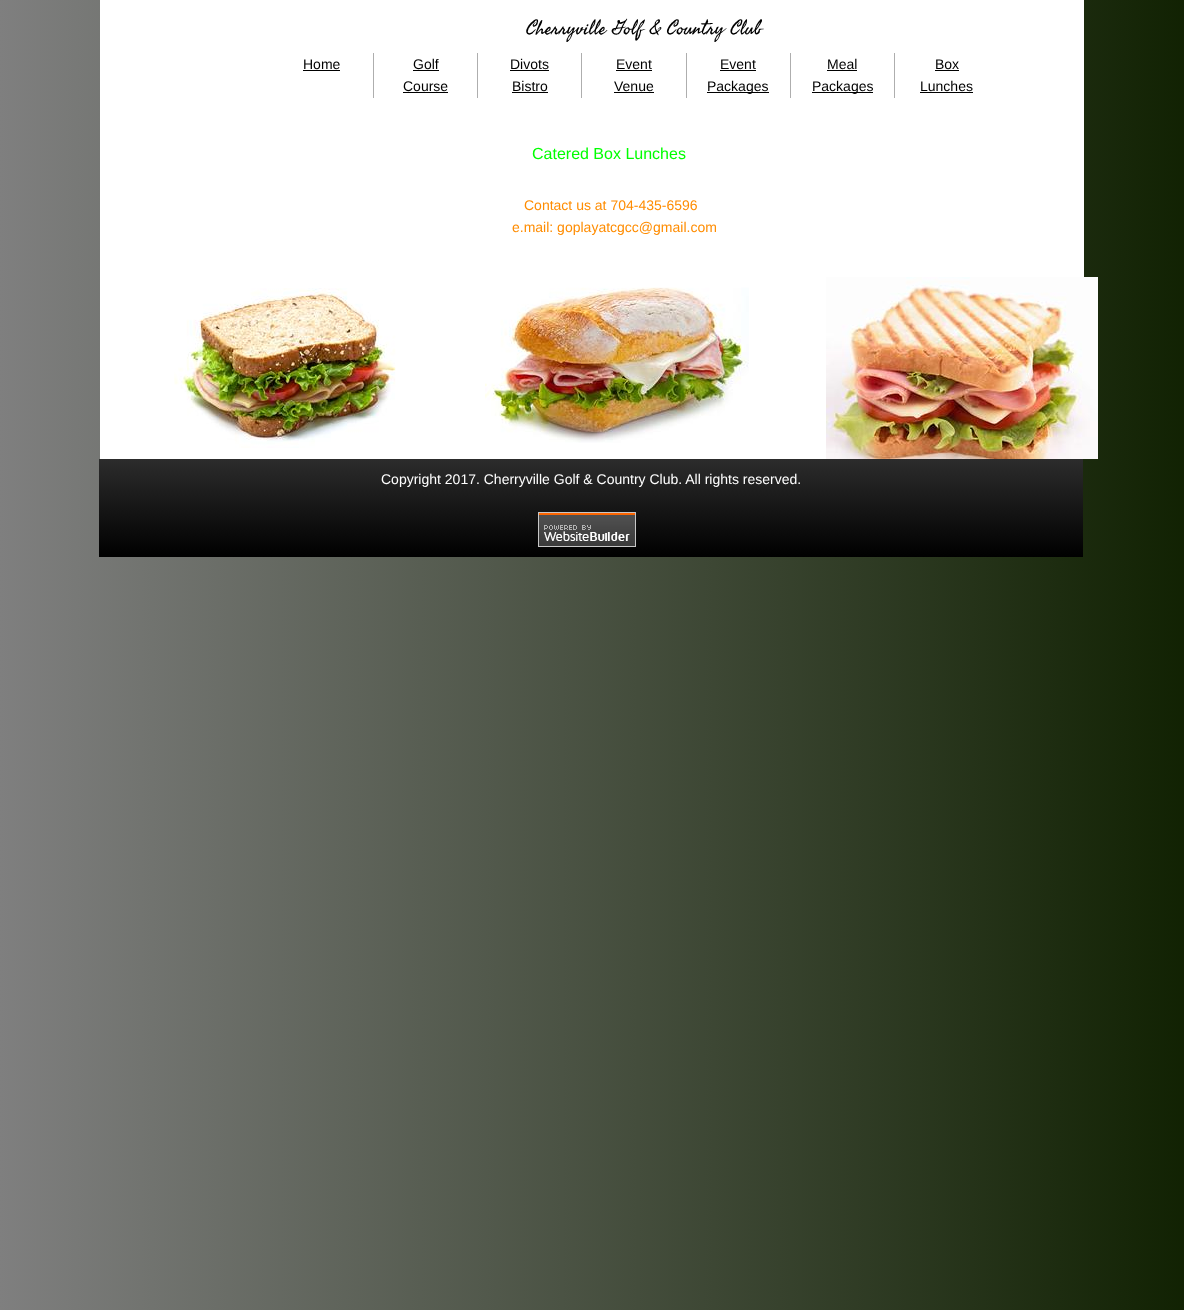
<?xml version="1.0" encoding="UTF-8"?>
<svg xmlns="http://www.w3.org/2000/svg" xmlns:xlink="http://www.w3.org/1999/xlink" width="1184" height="1310">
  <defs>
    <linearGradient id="g1" gradientUnits="userSpaceOnUse" x1="0" y1="655" x2="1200" y2="655"><stop offset="0" stop-color="#7f7f7f" /><stop offset="1" stop-color="#102101" /></linearGradient>
    <linearGradient id="g2" gradientUnits="userSpaceOnUse" x1="591" y1="459" x2="591" y2="557"><stop offset="0" stop-color="#4c4c4c" /><stop offset="0" stop-color="#474747" /><stop offset="0" stop-color="#2c2c2c" /><stop offset="1" stop-color="#000000" /></linearGradient>
  </defs>
  <rect width="100%" height="100%" fill="#ffffff" />
  <rect width="1184" height="1310" fill="url(#g1)" />
  <rect x="100" width="984" height="459" fill="#ffffff" />
  <rect x="373" y="53" width="1" height="45" fill="#aeaeae" />
  <rect x="303" y="70" width="37" height="1" fill="#000000" />
  <rect x="477" y="53" width="1" height="45" fill="#aeaeae" />
  <rect x="413" y="70" width="26" height="1" fill="#000000" />
  <rect x="403" y="92" width="45" height="1" fill="#000000" />
  <rect x="581" y="53" width="1" height="45" fill="#aeaeae" />
  <rect x="510" y="70" width="39" height="1" fill="#000000" />
  <rect x="512" y="92" width="36" height="1" fill="#000000" />
  <rect x="686" y="53" width="1" height="45" fill="#aeaeae" />
  <rect x="616" y="70" width="36" height="1" fill="#000000" />
  <rect x="614" y="92" width="40" height="1" fill="#000000" />
  <rect x="790" y="53" width="1" height="45" fill="#aeaeae" />
  <rect x="720" y="70" width="36" height="1" fill="#000000" />
  <rect x="707" y="92" width="62" height="1" fill="#000000" />
  <rect x="894" y="53" width="1" height="45" fill="#aeaeae" />
  <rect x="827" y="70" width="30" height="1" fill="#000000" />
  <rect x="812" y="92" width="61" height="1" fill="#000000" />
  <rect x="935" y="70" width="24" height="1" fill="#000000" />
  <rect x="920" y="92" width="53" height="1" fill="#000000" />
  <image x="174" y="288" width="222" height="160" xlink:href="image1.png" />
  <image x="485" y="287" width="264" height="156" xlink:href="image2.png" />
  <image x="826" y="277" width="272" height="182" xlink:href="image3.png" />
  <rect x="99" y="459" width="984" height="98" fill="url(#g2)" />
  <image x="538" y="512" width="98" height="35" xlink:href="image4.png" />
  <text x="526" y="34" style="font-family: Seaweed Script; font-size: 20px; fill: #000000">Cherryville Golf &amp; Country Club</text>
  <text x="303" y="69" style="font-family: Liberation Sans; font-size: 14px; fill: #000000">Home</text>
  <text x="413" y="69" style="font-family: Liberation Sans; font-size: 14px; fill: #000000">Golf</text>
  <text x="403" y="91" style="font-family: Liberation Sans; font-size: 14px; fill: #000000">Course</text>
  <text x="510" y="69" style="font-family: Liberation Sans; font-size: 14px; fill: #000000">Divots</text>
  <text x="512" y="91" style="font-family: Liberation Sans; font-size: 14px; fill: #000000">Bistro</text>
  <text x="616" y="69" style="font-family: Liberation Sans; font-size: 14px; fill: #000000">Event</text>
  <text x="614" y="91" style="font-family: Liberation Sans; font-size: 14px; fill: #000000">Venue</text>
  <text x="720" y="69" style="font-family: Liberation Sans; font-size: 14px; fill: #000000">Event</text>
  <text x="707" y="91" style="font-family: Liberation Sans; font-size: 14px; fill: #000000">Packages</text>
  <text x="827" y="69" style="font-family: Liberation Sans; font-size: 14px; fill: #000000">Meal</text>
  <text x="812" y="91" style="font-family: Liberation Sans; font-size: 14px; fill: #000000">Packages</text>
  <text x="935" y="69" style="font-family: Liberation Sans; font-size: 14px; fill: #000000">Box</text>
  <text x="920" y="91" style="font-family: Liberation Sans; font-size: 14px; fill: #000000">Lunches</text>
  <text x="532" y="159" style="font-family: Liberation Sans; font-size: 16px; fill: #00ff00">Catered Box Lunches</text>
  <text x="524" y="210" style="font-family: Liberation Sans; font-size: 14px; fill: #ff8c00">Contact us at 704-435-6596</text>
  <text x="512" y="232" style="font-family: Liberation Sans; font-size: 14px; fill: #ff8c00">e.mail: goplayatcgcc@gmail.com</text>
  <text x="381" y="484" style="font-family: Liberation Sans; font-size: 14px; fill: #ffffff">Copyright 2017. Cherryville Golf &amp; Country Club. All rights reserved.</text>
</svg>
